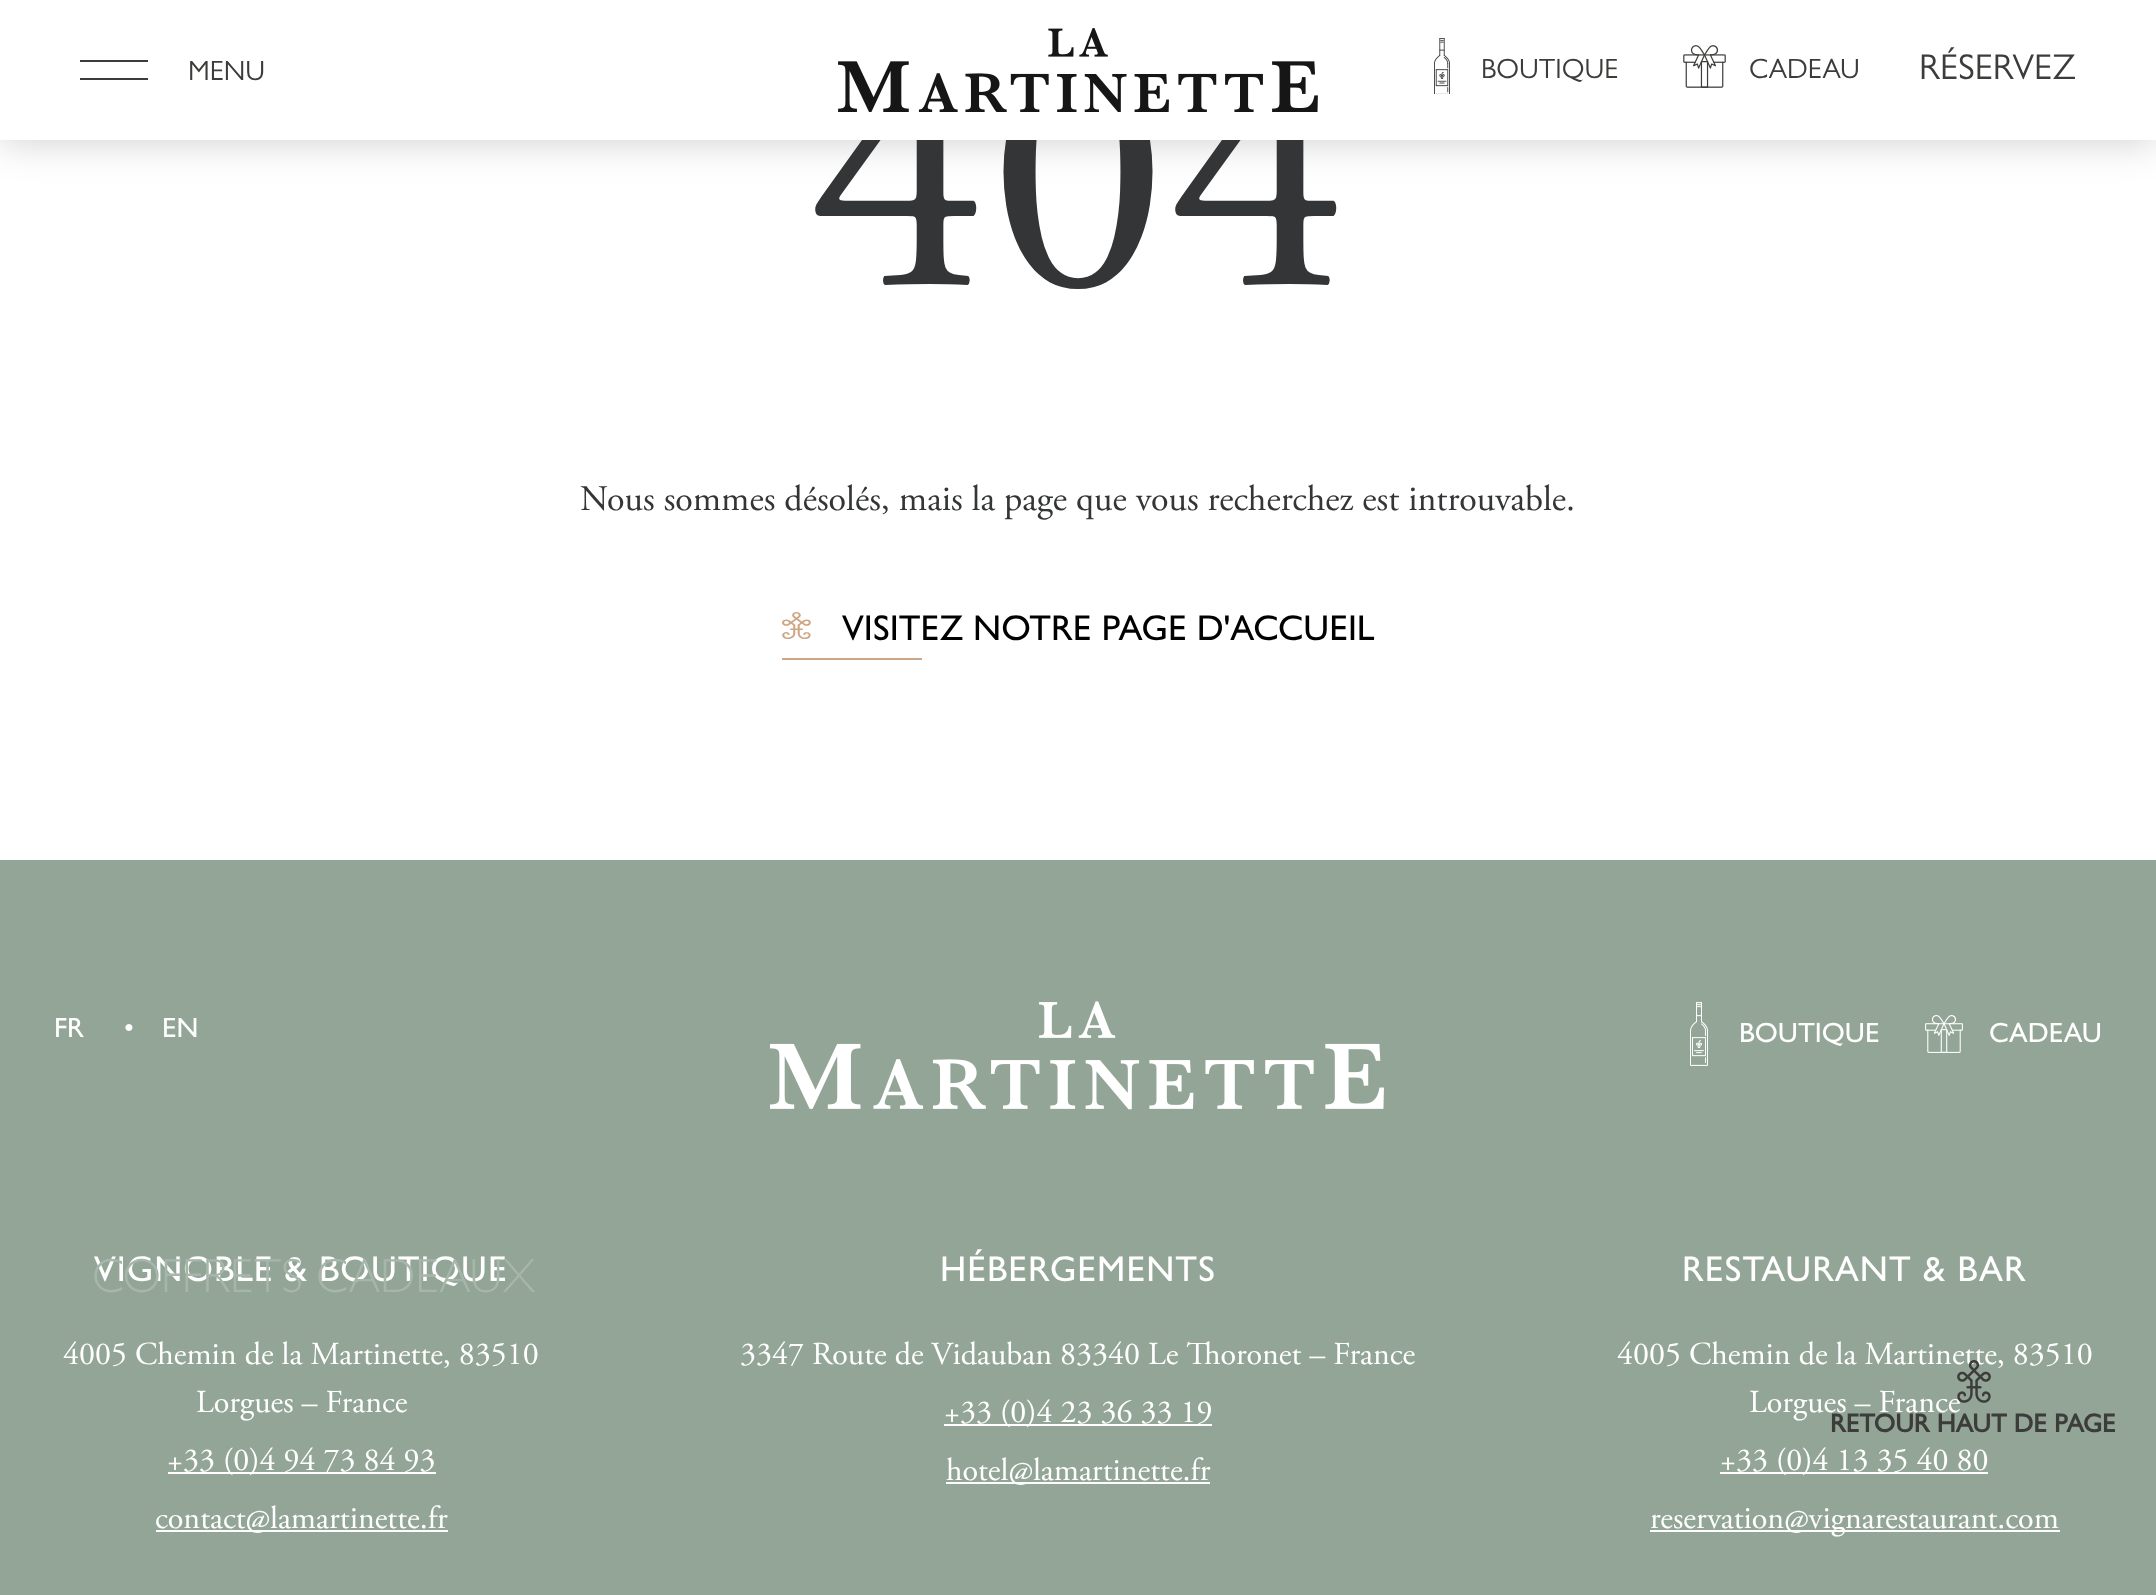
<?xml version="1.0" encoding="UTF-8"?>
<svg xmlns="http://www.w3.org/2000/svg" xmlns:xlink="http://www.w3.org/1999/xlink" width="2156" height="1595">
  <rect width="100%" height="100%" fill="#ffffff" />
  <image x="782" y="612" width="29" height="27" xlink:href="image1.png" />
  <rect x="782" y="658" width="140" height="2" fill="#cfa685" />
  <rect width="2156" height="140" fill="#000000" fill-opacity="0.2" filter="blur(20px)" />
  <rect y="860" width="2156" height="735" fill="#93a597" />
  <image x="770" y="1001" width="614" height="109" xlink:href="image5.png" />
  <image x="1690" y="1002" width="18" height="64" xlink:href="image6.png" />
  <image x="1925" y="1015" width="38" height="38" xlink:href="image7.png" />
  <rect x="168" y="1472" width="268" height="2" fill="#ffffff" />
  <rect x="156" y="1530" width="292" height="2" fill="#ffffff" />
  <rect x="944" y="1424" width="268" height="2" fill="#ffffff" />
  <rect x="946" y="1482" width="264" height="2" fill="#ffffff" />
  <rect x="1720" y="1472" width="268" height="2" fill="#ffffff" />
  <rect x="1650" y="1530" width="410" height="2" fill="#ffffff" />
  <text x="808" y="284" style="font-family: Adobe Garamond; font-size: 360px; fill: #343536">404</text>
  <text x="580" y="510" style="font-family: Adobe Garamond; font-size: 36px; fill: #343536">Nous sommes désolés, mais la page que vous recherchez est introuvable.</text>
  <text x="842" y="640" style="font-family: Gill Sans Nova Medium; font-size: 36px; font-weight: 500; fill: #000000">VISITEZ NOTRE PAGE D'ACCUEIL</text>
  <rect width="2156" height="140" fill="#ffffff" />
  <rect x="80" y="60" width="68" height="2" fill="#3c3c3b" />
  <rect x="80" y="78" width="68" height="2" fill="#3c3c3b" />
  <text x="188" y="80" style="font-family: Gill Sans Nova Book; font-size: 28px; fill: #3c3c3b">MENU</text>
  <image x="838" y="28" width="480" height="84" xlink:href="image2.png" />
  <image x="1434" y="38" width="16" height="56" xlink:href="image3.png" />
  <text x="1481" y="78" style="font-family: Gill Sans Nova Book; font-size: 28px; fill: #3c3c3b">BOUTIQUE</text>
  <image x="1683" y="45" width="43" height="43" xlink:href="image4.png" />
  <text x="1749" y="78" style="font-family: Gill Sans Nova Book; font-size: 28px; fill: #3c3c3b">CADEAU</text>
  <text x="1919" y="79" style="font-family: Gill Sans Nova Book; font-size: 36px; fill: #3c3c3b">RÉSERVEZ</text>
  <text x="54" y="1037" style="font-family: Gill Sans Nova Medium; font-size: 28px; font-weight: 500; fill: #ffffff">FR</text>
  <text x="124" y="1037" style="font-family: Gill Sans Nova Medium; font-size: 28px; font-weight: 500; fill: #ffffff">•</text>
  <text x="162" y="1037" style="font-family: Gill Sans Nova Medium; font-size: 28px; font-weight: 500; fill: #ffffff">EN</text>
  <text x="1739" y="1042" style="font-family: Gill Sans Nova Medium; font-size: 28px; font-weight: 500; fill: #ffffff">BOUTIQUE</text>
  <text x="1989" y="1042" style="font-family: Gill Sans Nova Medium; font-size: 28px; font-weight: 500; fill: #ffffff">CADEAU</text>
  <text x="94" y="1281" style="font-family: Gill Sans Nova Medium; font-size: 36px; font-weight: 500; letter-spacing: 1px; fill: #ffffff">VIGNOBLE &amp; BOUTIQUE</text>
  <text x="63" y="1364" style="font-family: Adobe Garamond; font-size: 32px; fill: #ffffff">4005 Chemin de la Martinette, 83510</text>
  <text x="196" y="1412" style="font-family: Adobe Garamond; font-size: 32px; fill: #ffffff">Lorgues – France</text>
  <text x="167" y="1470" style="font-family: Adobe Garamond; font-size: 32px; fill: #ffffff">+33 (0)4 94 73 84 93</text>
  <text x="155" y="1528" style="font-family: Adobe Garamond; font-size: 32px; fill: #ffffff">contact@lamartinette.fr</text>
  <text x="940" y="1281" style="font-family: Gill Sans Nova Medium; font-size: 36px; font-weight: 500; letter-spacing: 1px; fill: #ffffff">HÉBERGEMENTS</text>
  <text x="740" y="1364" style="font-family: Adobe Garamond; font-size: 32px; fill: #ffffff">3347 Route de Vidauban 83340 Le Thoronet – France</text>
  <text x="944" y="1422" style="font-family: Adobe Garamond; font-size: 32px; fill: #ffffff">+33 (0)4 23 36 33 19</text>
  <text x="946" y="1480" style="font-family: Adobe Garamond; font-size: 32px; fill: #ffffff">hotel@lamartinette.fr</text>
  <text x="1682" y="1281" style="font-family: Gill Sans Nova Medium; font-size: 36px; font-weight: 500; letter-spacing: 1px; fill: #ffffff">RESTAURANT &amp; BAR</text>
  <text x="1617" y="1364" style="font-family: Adobe Garamond; font-size: 32px; fill: #ffffff">4005 Chemin de la Martinette, 83510</text>
  <text x="1749" y="1412" style="font-family: Adobe Garamond; font-size: 32px; fill: #ffffff">Lorgues – France</text>
  <text x="1720" y="1470" style="font-family: Adobe Garamond; font-size: 32px; fill: #ffffff">+33 (0)4 13 35 40 80</text>
  <text x="1650" y="1528" style="font-family: Adobe Garamond; font-size: 32px; fill: #ffffff">reservation@vignarestaurant.com</text>
  <text x="92" y="1292" style="font-family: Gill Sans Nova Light; font-size: 48px; font-weight: 300; fill: #a7b6ab">COFFRETS CADEAUX</text>
  <image x="1957" y="1360" width="34" height="43" xlink:href="image8.png" />
  <text x="1830" y="1432" style="font-family: Gill Sans Nova Medium; font-size: 26px; font-weight: bold; fill: #3c3c3b">RETOUR HAUT DE PAGE</text>
</svg>
